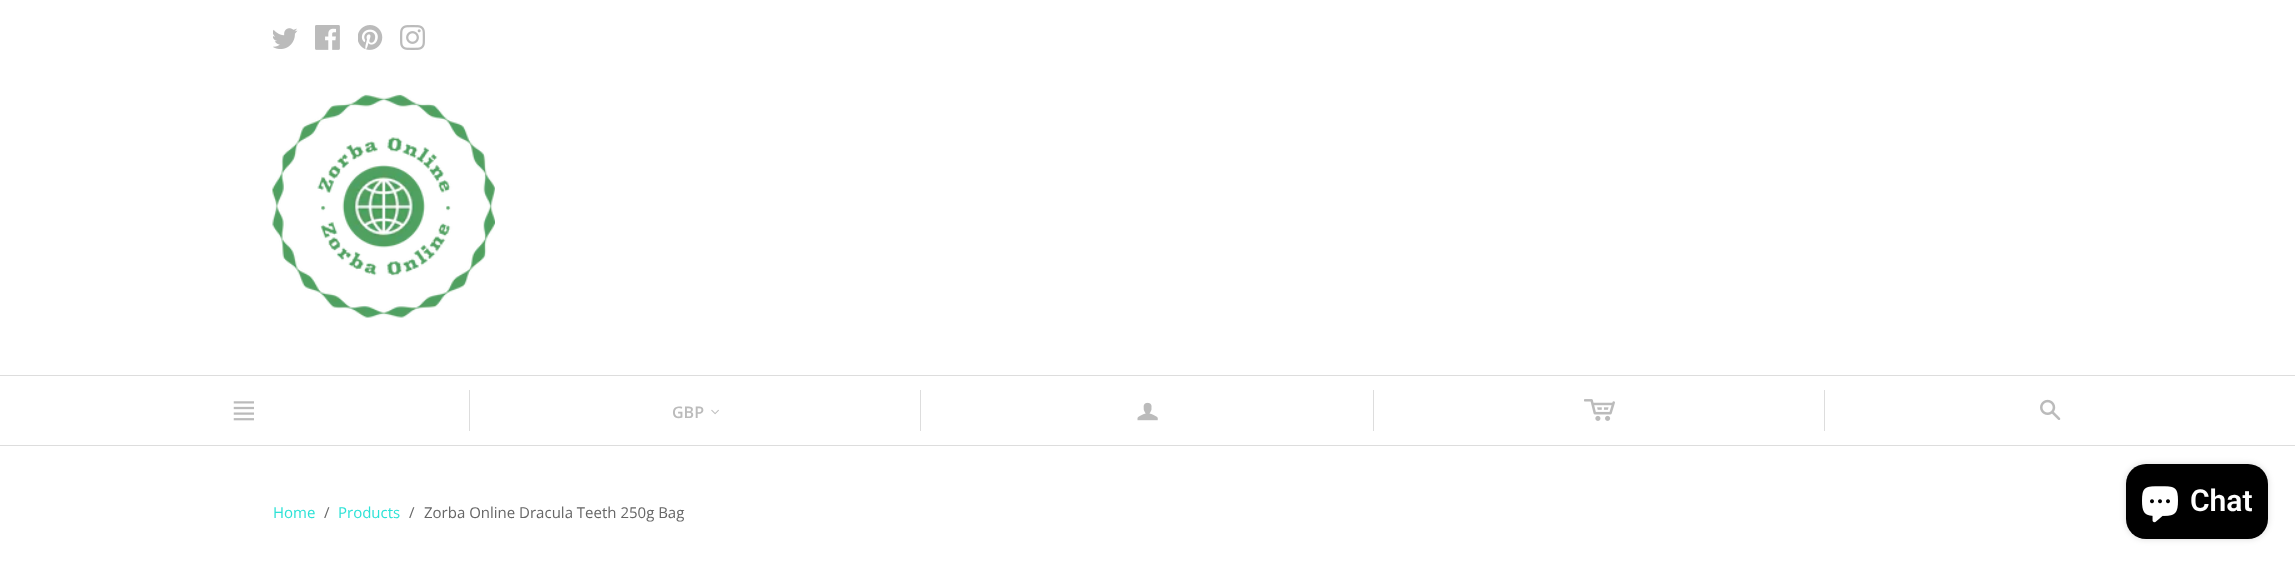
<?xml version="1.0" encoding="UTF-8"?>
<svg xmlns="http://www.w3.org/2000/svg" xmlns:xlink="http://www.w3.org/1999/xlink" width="2295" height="564">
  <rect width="100%" height="100%" fill="#ffffff" />
  <image x="273" y="28" width="25" height="21" xlink:href="image1.png" />
  <image x="315" y="25" width="25" height="25" xlink:href="image2.png" />
  <image x="358" y="25" width="25" height="25" xlink:href="image3.png" />
  <image x="400" y="25" width="25" height="25" xlink:href="image4.png" />
  <image x="272" y="94" width="223" height="224" xlink:href="image5.png" />
  <rect y="375" width="2295" height="1" fill="#dddddd" />
  <rect y="445" width="2295" height="1" fill="#dddddd" />
  <image x="233" y="401" width="21" height="20" xlink:href="image6.png" />
  <rect x="469" y="390" width="1" height="41" fill="#dddddd" />
  <image x="711" y="409" width="8" height="6" xlink:href="image7.png" />
  <rect x="920" y="390" width="1" height="41" fill="#dddddd" />
  <image x="1137" y="402" width="21" height="19" xlink:href="image8.png" />
  <rect x="1373" y="390" width="1" height="41" fill="#dddddd" />
  <image x="1584" y="399" width="31" height="22" xlink:href="image9.png" />
  <rect x="1824" y="390" width="1" height="41" fill="#dddddd" />
  <image x="2040" y="399" width="21" height="21" xlink:href="image10.png" />
  <rect x="2126" y="464" width="142" height="75" rx="20" fill="#000000" fill-opacity="0.15" filter="blur(3px)" />
  <rect x="2126" y="464" width="142" height="75" rx="20" fill="#000000" />
  <image x="2142" y="486" width="36" height="37" xlink:href="image11.png" />
  <text x="672" y="418" style="font-family: Open Sans; font-size: 16px; font-weight: 600; fill: #bbbbbb">GBP</text>
  <text x="2190" y="511" style="font-family: Roboto; font-size: 30px; font-weight: 600; fill: #ffffff">Chat</text>
  <text x="273" y="518" style="font-family: Open Sans; font-size: 15px; fill: #2ce2d6">Home</text>
  <text x="324" y="518" style="font-family: Open Sans; font-size: 15px; fill: #666666">/</text>
  <text x="338" y="518" style="font-family: Open Sans; font-size: 15px; fill: #2ce2d6">Products</text>
  <text x="409" y="518" style="font-family: Open Sans; font-size: 15px; fill: #666666">/</text>
  <text x="424" y="518" style="font-family: Open Sans; font-size: 15px; fill: #666666">Zorba Online Dracula Teeth 250g Bag</text>
</svg>
